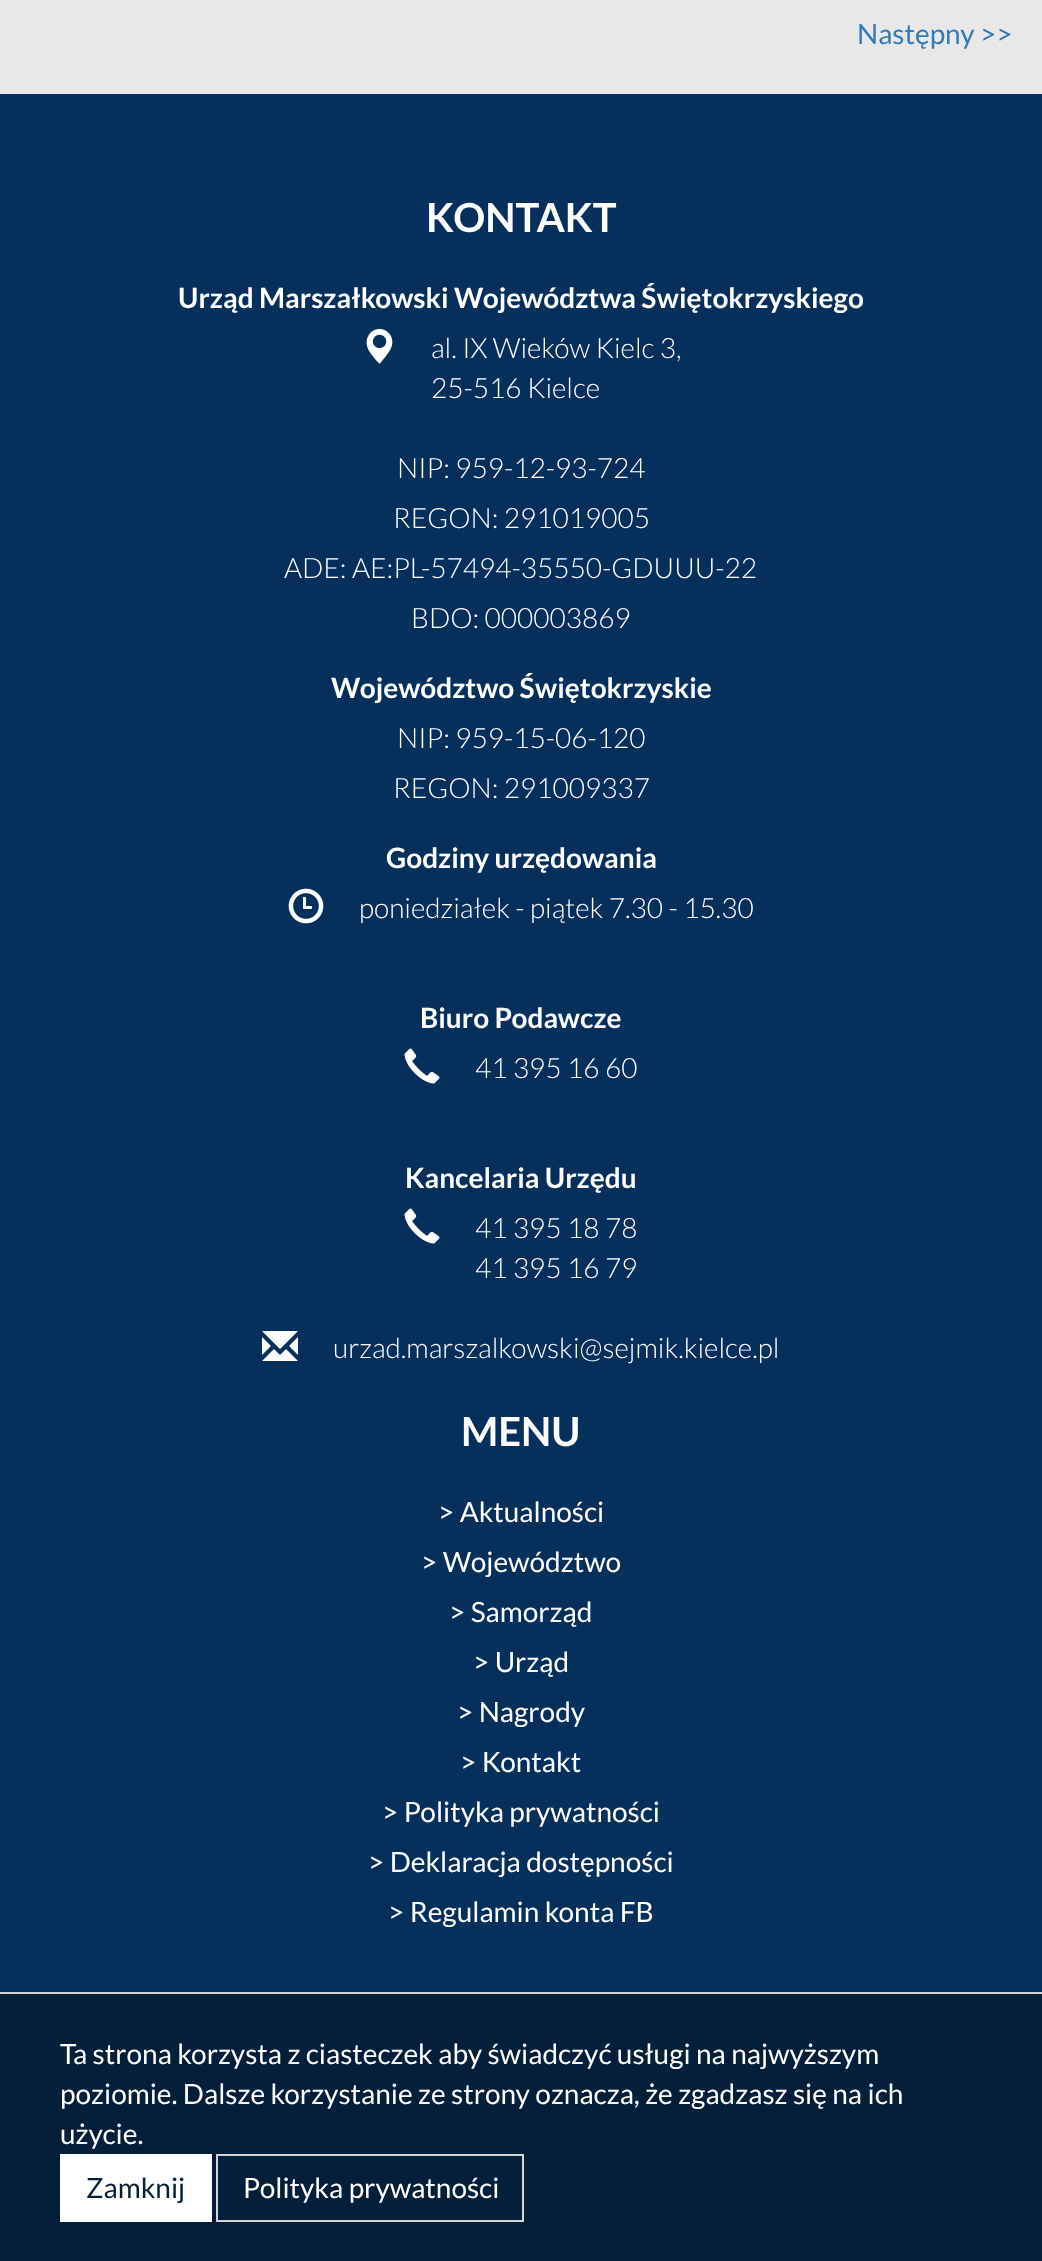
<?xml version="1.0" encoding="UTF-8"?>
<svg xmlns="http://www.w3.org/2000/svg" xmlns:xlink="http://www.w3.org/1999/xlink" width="1042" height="2261">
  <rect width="100%" height="100%" fill="#e8e8e8" />
  <rect y="94" width="1042" height="1898" fill="#072f5c" />
  <image x="366" y="328" width="27" height="36" xlink:href="image1.png" />
  <image x="288" y="888" width="36" height="36" xlink:href="image2.png" />
  <image x="404" y="1048" width="36" height="36" xlink:href="image3.png" />
  <image x="404" y="1208" width="36" height="36" xlink:href="image3.png" />
  <image x="262" y="1331" width="36" height="30" xlink:href="image4.png" />
  <rect y="1994" width="1042" height="267" fill="#051e3a" />
  <rect y="1992" width="1042" height="2" fill="#d4d4d4" />
  <rect x="60" y="2154" width="152" height="68" fill="#ffffff" />
  <rect x="217" y="2155" width="306" height="66" fill="none" stroke="#d4d4d4" stroke-width="2" />
  <text x="857" y="44" style="font-family: Lato; font-size: 28px; fill: #337ab7">Następny &gt;&gt;</text>
  <text x="426" y="232" style="font-family: Lato; font-size: 40px; font-weight: bold; fill: #ffffff">KONTAKT</text>
  <text x="178" y="308" style="font-family: Lato; font-size: 28px; font-weight: bold; fill: #ffffff">Urząd Marszałkowski Województwa Świętokrzyskiego</text>
  <text x="431" y="358" style="font-family: Lato; font-size: 28px; font-weight: 300; fill: #ffffff">al. IX Wieków Kielc 3,</text>
  <text x="431" y="398" style="font-family: Lato; font-size: 28px; font-weight: 300; fill: #ffffff">25-516 Kielce</text>
  <text x="397" y="478" style="font-family: Lato; font-size: 28px; font-weight: 300; fill: #ffffff">NIP: 959-12-93-724</text>
  <text x="393" y="528" style="font-family: Lato; font-size: 28px; font-weight: 300; fill: #ffffff">REGON: 291019005</text>
  <text x="284" y="578" style="font-family: Lato; font-size: 28px; font-weight: 300; fill: #ffffff">ADE: AE:PL-57494-35550-GDUUU-22</text>
  <text x="411" y="628" style="font-family: Lato; font-size: 28px; font-weight: 300; fill: #ffffff">BDO: 000003869</text>
  <text x="331" y="698" style="font-family: Lato; font-size: 28px; font-weight: bold; fill: #ffffff">Województwo Świętokrzyskie</text>
  <text x="397" y="748" style="font-family: Lato; font-size: 28px; font-weight: 300; fill: #ffffff">NIP: 959-15-06-120</text>
  <text x="393" y="798" style="font-family: Lato; font-size: 28px; font-weight: 300; fill: #ffffff">REGON: 291009337</text>
  <text x="386" y="868" style="font-family: Lato; font-size: 28px; font-weight: bold; fill: #ffffff">Godziny urzędowania</text>
  <text x="359" y="918" style="font-family: Lato; font-size: 28px; font-weight: 300; fill: #ffffff">poniedziałek - piątek 7.30 - 15.30</text>
  <text x="420" y="1028" style="font-family: Lato; font-size: 28px; font-weight: bold; fill: #ffffff">Biuro Podawcze</text>
  <text x="475" y="1078" style="font-family: Lato; font-size: 28px; font-weight: 300; fill: #ffffff">41 395 16 60</text>
  <text x="405" y="1188" style="font-family: Lato; font-size: 28px; font-weight: bold; fill: #ffffff">Kancelaria Urzędu</text>
  <text x="475" y="1238" style="font-family: Lato; font-size: 28px; font-weight: 300; fill: #ffffff">41 395 18 78</text>
  <text x="475" y="1278" style="font-family: Lato; font-size: 28px; font-weight: 300; fill: #ffffff">41 395 16 79</text>
  <text x="333" y="1358" style="font-family: Lato; font-size: 28px; font-weight: 300; fill: #ffffff">urzad.marszalkowski@sejmik.kielce.pl</text>
  <text x="461" y="1446" style="font-family: Lato; font-size: 40px; font-weight: bold; fill: #ffffff">MENU</text>
  <text x="438" y="1522" style="font-family: Lato; font-size: 28px; fill: #ffffff">&gt; Aktualności</text>
  <text x="421" y="1572" style="font-family: Lato; font-size: 28px; fill: #ffffff">&gt; Województwo</text>
  <text x="449" y="1622" style="font-family: Lato; font-size: 28px; fill: #ffffff">&gt; Samorząd</text>
  <text x="473" y="1672" style="font-family: Lato; font-size: 28px; fill: #ffffff">&gt; Urząd</text>
  <text x="457" y="1722" style="font-family: Lato; font-size: 28px; fill: #ffffff">&gt; Nagrody</text>
  <text x="460" y="1772" style="font-family: Lato; font-size: 28px; fill: #ffffff">&gt; Kontakt</text>
  <text x="382" y="1822" style="font-family: Lato; font-size: 28px; fill: #ffffff">&gt; Polityka prywatności</text>
  <text x="368" y="1872" style="font-family: Lato; font-size: 28px; fill: #ffffff">&gt; Deklaracja dostępności</text>
  <text x="388" y="1922" style="font-family: Lato; font-size: 28px; fill: #ffffff">&gt; Regulamin konta FB</text>
  <text x="60" y="2064" style="font-family: Lato; font-size: 28px; fill: #ffffff">Ta strona korzysta z ciasteczek aby świadczyć usługi na najwyższym</text>
  <text x="60" y="2104" style="font-family: Lato; font-size: 28px; fill: #ffffff">poziomie. Dalsze korzystanie ze strony oznacza, że zgadzasz się na ich</text>
  <text x="60" y="2144" style="font-family: Lato; font-size: 28px; fill: #ffffff">użycie.</text>
  <text x="86" y="2198" style="font-family: Lato; font-size: 28px; fill: #051e3a">Zamknij</text>
  <text x="243" y="2198" style="font-family: Lato; font-size: 28px; fill: #ffffff">Polityka prywatności</text>
</svg>
